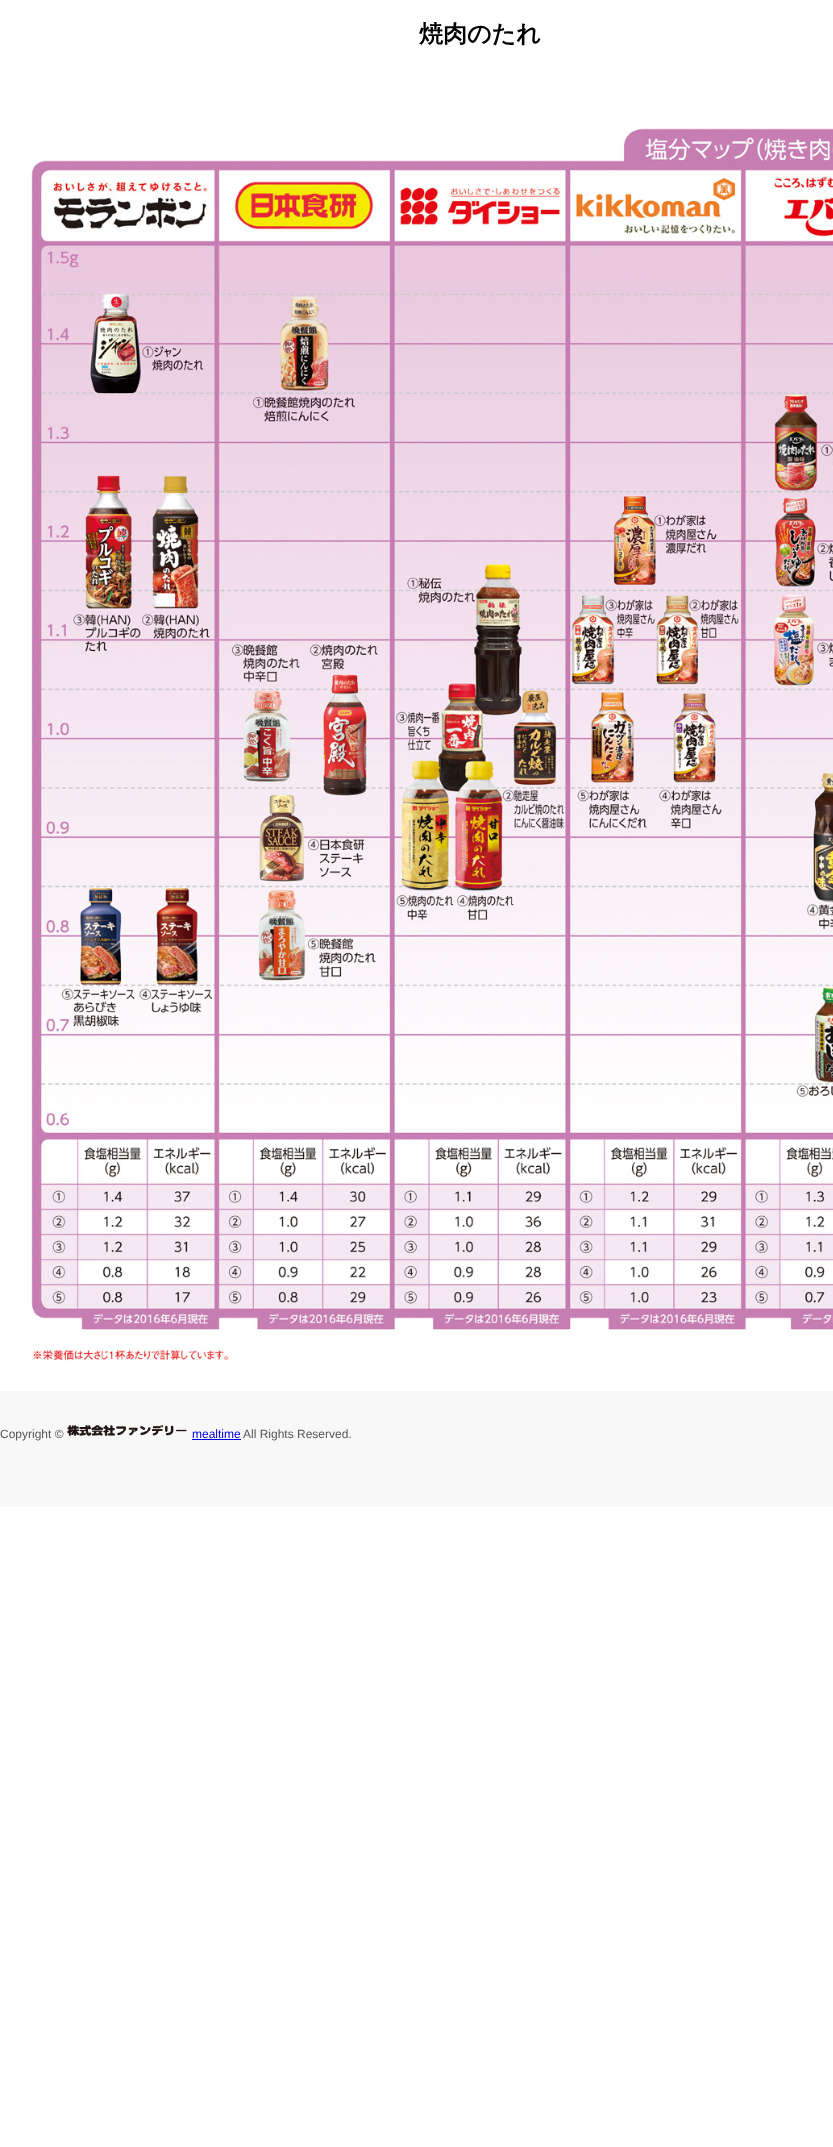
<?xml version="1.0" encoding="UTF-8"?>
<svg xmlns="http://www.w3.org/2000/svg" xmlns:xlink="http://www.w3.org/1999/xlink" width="833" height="2147">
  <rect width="100%" height="100%" fill="#ffffff" />
  <image x="31" y="128" width="802" height="1233" xlink:href="image1.png" />
  <rect y="1391" width="833" height="116" fill="#f8f8f8" />
  <image x="67" y="1425" width="120" height="11" xlink:href="image2.png" />
  <rect x="192" y="1439" width="49" height="1" fill="#0000ee" />
  <text x="419" y="42" style="font-family: WenQuanYi Zen Hei; font-size: 24px; font-weight: bold; fill: #000000">焼肉のたれ</text>
  <text x="0" y="1438" style="font-family: Liberation Sans; font-size: 12px; fill: #555555">Copyright ©</text>
  <text x="192" y="1438" style="font-family: Liberation Sans; font-size: 12px; fill: #0000ee">mealtime</text>
  <text x="243" y="1438" style="font-family: Liberation Sans; font-size: 12px; fill: #555555">All Rights Reserved.</text>
</svg>
